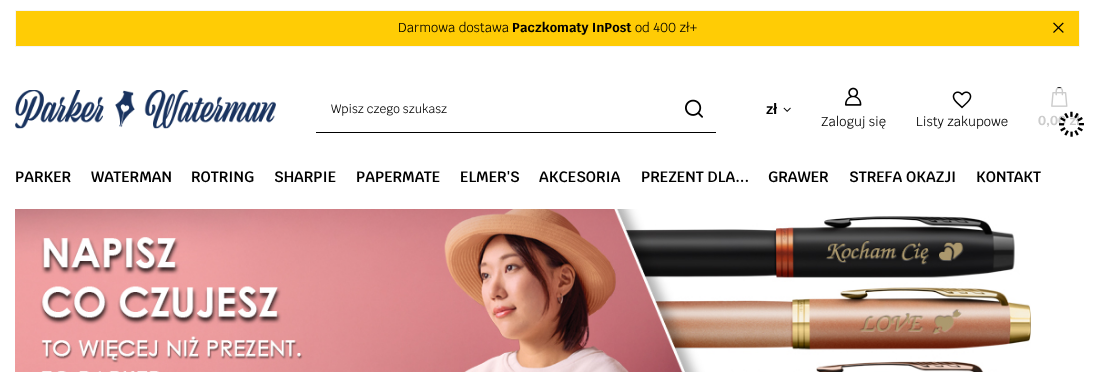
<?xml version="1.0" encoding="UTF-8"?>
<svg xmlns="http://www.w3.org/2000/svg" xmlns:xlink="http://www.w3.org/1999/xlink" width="1095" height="372">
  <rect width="100%" height="100%" fill="#ffffff" />
  <rect x="15.5" y="10.5" width="1064" height="36" fill="#ffcc05" stroke="#f5f5f5" />
  <image x="1053" y="22" width="11" height="11" xlink:href="image1.png" />
  <image x="15" y="90" width="261" height="39" xlink:href="image2.png" />
  <rect x="316" y="132" width="400" height="1" fill="#000000" />
  <image x="685" y="99" width="18" height="19" xlink:href="image3.png" />
  <image x="783" y="107" width="8" height="5" xlink:href="image4.png" />
  <image x="845" y="87" width="17" height="19" xlink:href="image5.png" />
  <image x="952" y="91" width="20" height="18" xlink:href="image6.png" />
  <image x="1051" y="87" width="17" height="20" xlink:href="image8.png" />
  <image x="15" y="209" width="1016" height="163" xlink:href="image9.png" />
  <text x="398" y="32" style="font-family: Krub; font-size: 13px; fill: #000000">Darmowa dostawa</text>
  <text x="512" y="32" style="font-family: Krub; font-size: 13px; font-weight: bold; fill: #000000">Paczkomaty InPost</text>
  <text x="635" y="32" style="font-family: Krub; font-size: 13px; fill: #000000">od 400 zł+</text>
  <text x="331" y="113" style="font-family: Krub; font-size: 12px; fill: #000000">Wpisz czego szukasz</text>
  <text x="766" y="114" style="font-family: Krub; font-size: 14px; font-weight: bold; fill: #000000">zł</text>
  <text x="821" y="126" style="font-family: Krub; font-size: 13px; fill: #000000">Zaloguj się</text>
  <text x="916" y="126" style="font-family: Krub; font-size: 13px; fill: #000000">Listy zakupowe</text>
  <text x="1038" y="125" style="font-family: Krub; font-size: 13px; font-weight: bold; fill: #cccccc">0,00 zł</text>
  <image x="1059" y="111" width="25" height="26" xlink:href="image7.png" />
  <text x="15" y="182" style="font-family: Krub; font-size: 15px; font-weight: 600; fill: #000000">PARKER</text>
  <text x="91" y="182" style="font-family: Krub; font-size: 15px; font-weight: 600; fill: #000000">WATERMAN</text>
  <text x="191" y="182" style="font-family: Krub; font-size: 15px; font-weight: 600; fill: #000000">ROTRING</text>
  <text x="274" y="182" style="font-family: Krub; font-size: 15px; font-weight: 600; fill: #000000">SHARPIE</text>
  <text x="356" y="182" style="font-family: Krub; font-size: 15px; font-weight: 600; fill: #000000">PAPERMATE</text>
  <text x="460" y="182" style="font-family: Krub; font-size: 15px; font-weight: 600; fill: #000000">ELMER'S</text>
  <text x="539" y="182" style="font-family: Krub; font-size: 15px; font-weight: 600; fill: #000000">AKCESORIA</text>
  <text x="641" y="182" style="font-family: Krub; font-size: 15px; font-weight: 600; fill: #000000">PREZENT DLA...</text>
  <text x="768" y="182" style="font-family: Krub; font-size: 15px; font-weight: 600; fill: #000000">GRAWER</text>
  <text x="849" y="182" style="font-family: Krub; font-size: 15px; font-weight: 600; fill: #000000">STREFA OKAZJI</text>
  <text x="976" y="182" style="font-family: Krub; font-size: 15px; font-weight: 600; fill: #000000">KONTAKT</text>
</svg>
